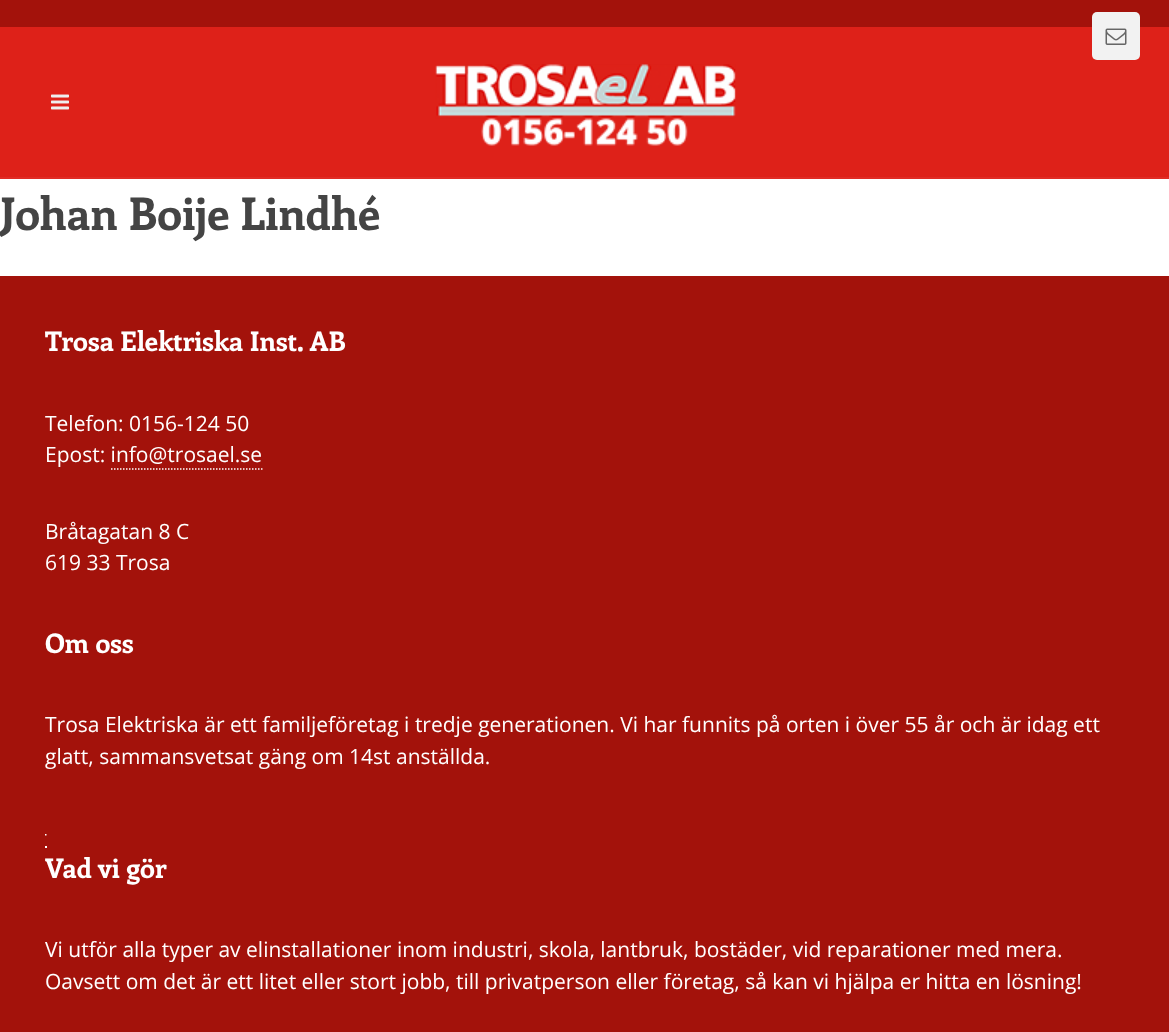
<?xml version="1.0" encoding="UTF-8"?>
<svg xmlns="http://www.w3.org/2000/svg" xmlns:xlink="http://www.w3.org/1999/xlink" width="1169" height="1032">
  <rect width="100%" height="100%" fill="#ffffff" />
  <rect width="1169" height="27" fill="#a3120b" />
  <rect y="27" width="1169" height="150" fill="#de2119" />
  <rect x="1092" y="12" width="48" height="48" rx="5" fill="#f2f2f2" />
  <image x="1105" y="28" width="22" height="17" xlink:href="image1.png" />
  <rect y="177" width="1169" height="2" fill="#e02c25" />
  <image x="51" y="94" width="18" height="16" xlink:href="image2.png" />
  <image x="435" y="64" width="301" height="82" xlink:href="image3.png" />
  <rect y="276" width="1169" height="756" fill="#a3120b" />
  <path d="M 111 469 h 151.5" fill="none" stroke="#ffffff" stroke-width="1.5" stroke-dasharray="1.5 1.5" />
  <image x="45" y="834" width="2" height="2" xlink:href="image4.png" />
  <rect x="45" y="846" width="2" height="2" fill="#ffffff" />
  <text x="0" y="230" style="font-family: Enriqueta; font-size: 45px; font-weight: bold; fill: #444444">Johan Boije Lindhé</text>
  <text x="45" y="351" style="font-family: Enriqueta; font-size: 27px; font-weight: bold; fill: #ffffff">Trosa Elektriska Inst. AB</text>
  <text x="45" y="431" style="font-family: Open Sans; font-size: 21px; fill: #ffffff">Telefon: 0156-124 50</text>
  <text x="45" y="462" style="font-family: Open Sans; font-size: 21px; fill: #ffffff">Epost: info@trosael.se</text>
  <text x="45" y="539" style="font-family: Open Sans; font-size: 21px; fill: #ffffff">Bråtagatan 8 C</text>
  <text x="45" y="570" style="font-family: Open Sans; font-size: 21px; fill: #ffffff">619 33 Trosa</text>
  <text x="45" y="653" style="font-family: Enriqueta; font-size: 27px; font-weight: bold; fill: #ffffff">Om oss</text>
  <text x="45" y="732" style="font-family: Open Sans; font-size: 21px; fill: #ffffff">Trosa Elektriska är ett familjeföretag i tredje generationen. Vi har funnits på orten i över 55 år och är idag ett</text>
  <text x="45" y="764" style="font-family: Open Sans; font-size: 21px; fill: #ffffff">glatt, sammansvetsat gäng om 14st anställda.</text>
  <text x="45" y="878" style="font-family: Enriqueta; font-size: 27px; font-weight: bold; fill: #ffffff">Vad vi gör</text>
  <text x="45" y="957" style="font-family: Open Sans; font-size: 21px; fill: #ffffff">Vi utför alla typer av elinstallationer inom industri, skola, lantbruk, bostäder, vid reparationer med mera.</text>
  <text x="45" y="989" style="font-family: Open Sans; font-size: 21px; fill: #ffffff">Oavsett om det är ett litet eller stort jobb, till privatperson eller företag, så kan vi hjälpa er hitta en lösning!</text>
</svg>
